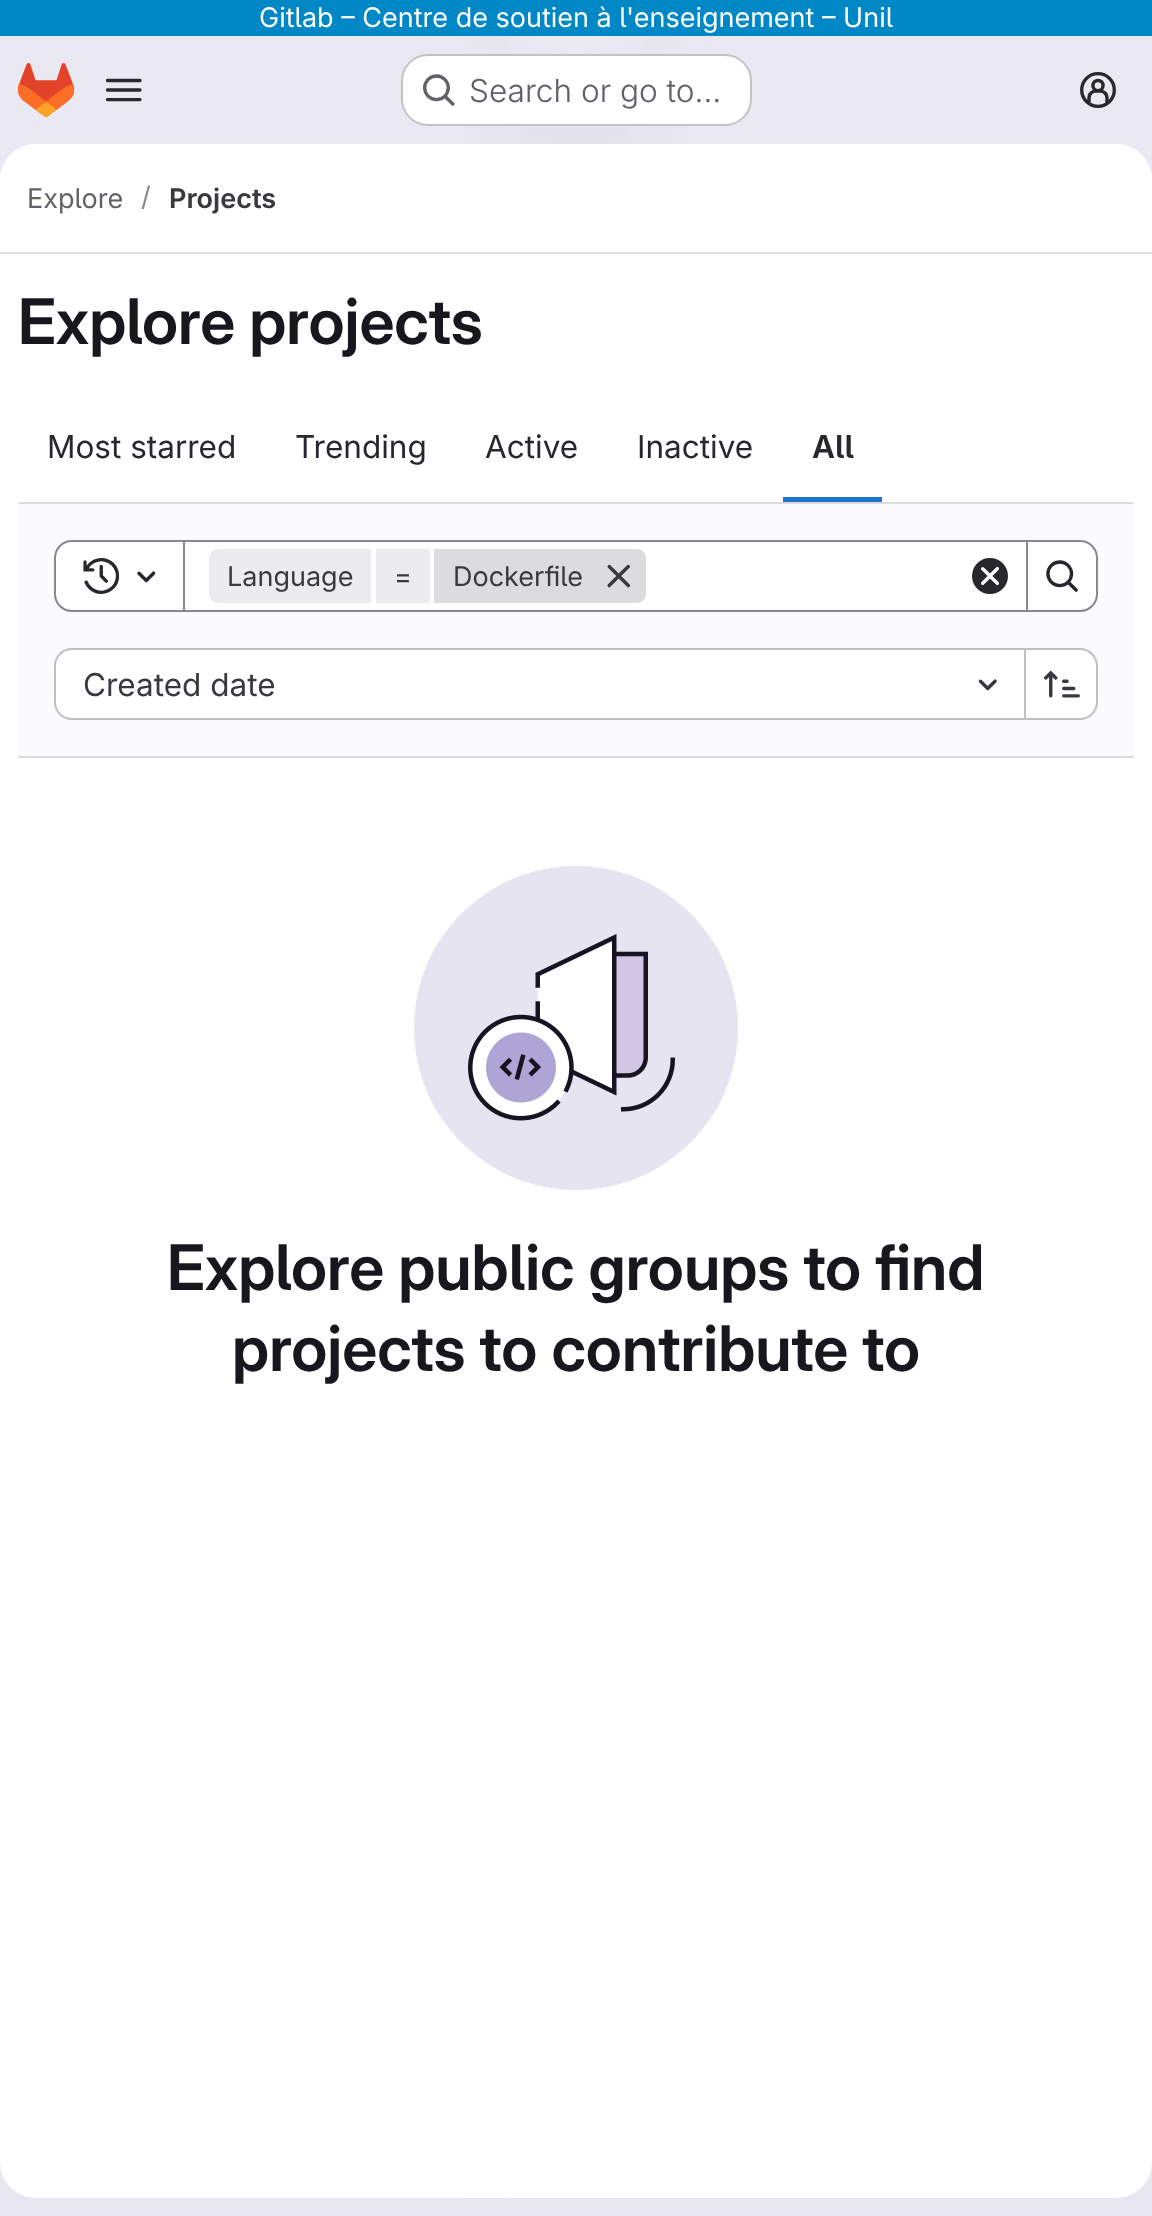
<?xml version="1.0" encoding="UTF-8"?>
<svg xmlns="http://www.w3.org/2000/svg" xmlns:xlink="http://www.w3.org/1999/xlink" width="1152" height="2216">
  <defs>
    <linearGradient id="g1" gradientUnits="userSpaceOnUse" x1="783" y1="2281" x2="369" y2="-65"><stop offset="0" stop-color="#e8e6f0" /><stop offset="0.7" stop-color="#eae9f2" /></linearGradient>
    <radialGradient id="g2" gradientUnits="userSpaceOnUse" cx="0" cy="0" r="1" gradientTransform="matrix(576 0 0 2216 576 0)"><stop offset="0" stop-color="#e4e2ed" /><stop offset="0.27" stop-color="#e4e2ed" stop-opacity="0" /></radialGradient>
    <radialGradient id="g3" gradientUnits="userSpaceOnUse" cx="0" cy="0" r="1" gradientTransform="matrix(576 0 0 2216 576 0)"><stop offset="0" stop-color="#e4e2ec" /><stop offset="0.2" stop-color="#e4e2ec" stop-opacity="0" /></radialGradient>
    <radialGradient id="g4" gradientUnits="userSpaceOnUse" cx="576" cy="0" r="2290"><stop offset="0" stop-color="#ffffff" stop-opacity="0.6" /><stop offset="0.04" stop-color="#ffffff" stop-opacity="0" /></radialGradient>
  </defs>
  <rect width="100%" height="100%" fill="#ffffff" />
  <rect y="36" width="1152" height="2180" fill="url(#g1)" />
  <rect x="465" y="36" width="222" height="108" fill="url(#g2)" />
  <rect x="523" y="36" width="106" height="105" fill="url(#g3)" />
  <rect x="509" y="36" width="134" height="18" fill="url(#g4)" />
  <rect width="1152" height="36" fill="#0087c5" />
  <image x="18" y="63" width="56" height="54" xlink:href="image1.png" />
  <image x="105" y="78" width="37" height="24" xlink:href="image2.png" />
  <rect x="401" y="54" width="351" height="72" rx="27" fill="#ffffff" />
  <rect x="402" y="55" width="349" height="70" rx="26" fill="none" stroke="#050506" stroke-opacity="0.24" stroke-width="2" />
  <image x="423" y="74" width="32" height="32" xlink:href="image3.png" />
  <image x="1080" y="72" width="36" height="36" xlink:href="image4.png" />
  <rect y="144" width="1152" height="2054" rx="36" fill="#ffffff" />
  <path d="M 36 144 h 1080 c 20 0 36 16 36 36 v 74 h -1152 v -74 c 0 -20 16 -36 36 -36 z" fill="#ffffff" />
  <rect y="252" width="1152" height="2" fill="#e1dfec" />
  <rect x="783" y="497" width="99" height="5" fill="#1f75cb" />
  <rect x="18" y="504" width="1116" height="252" fill="#fbfafd" />
  <rect x="18" y="502" width="1116" height="2" fill="#dcdcde" />
  <rect x="18" y="756" width="1116" height="2" fill="#dcdcde" />
  <rect x="185" y="542" width="841" height="68" fill="#ffffff" />
  <rect x="183" y="541" width="844" height="70" fill="none" stroke="#89888d" stroke-width="2" />
  <path d="M 72 541 h 112 v 70 h -112 c -9.5 0 -17 -7.5 -17 -17 v -36 c 0 -9.5 7.5 -17 17 -17 z" fill="#ffffff" stroke="#89888d" stroke-width="2" />
  <image x="83" y="558" width="37" height="36" xlink:href="image5.png" />
  <image x="137" y="571" width="19" height="12" xlink:href="image6.png" />
  <path d="M 218 549 h 153 v 54 h -153 c -5 0 -9 -4 -9 -9 v -36 c 0 -5 4 -9 9 -9 z" fill="#ececef" />
  <rect x="376" y="549" width="54" height="54" fill="#ececef" />
  <path d="M 434 549 h 203 c 5 0 9 4 9 9 v 36 c 0 5 -4 9 -9 9 h -203 z" fill="#dcdcde" />
  <image x="607" y="564" width="24" height="24" xlink:href="image7.png" />
  <image x="972" y="558" width="36" height="36" xlink:href="image8.png" />
  <path d="M 1027 541 h 53 c 9.5 0 17 7.5 17 17 v 36 c 0 9.5 -7.5 17 -17 17 h -53 z" fill="#ffffff" stroke="#89888d" stroke-width="2" />
  <image x="1046" y="560" width="32" height="32" xlink:href="image9.png" />
  <path d="M 72 650 h 952 v 68 h -952 c -9 0 -16 -7 -16 -16 v -36 c 0 -9 7 -16 16 -16 z" fill="#ffffff" />
  <path d="M 72 648 h 952 v 72 h -952 c -10 0 -18 -8 -18 -18 v -36 c 0 -10 8 -18 18 -18 z m 0 2 h 952 v 68 h -952 c -9 0 -16 -7 -16 -16 v -36 c 0 -9 7 -16 16 -16 z" fill="#bfbfc3" fill-rule="evenodd" />
  <image x="978" y="679" width="19" height="12" xlink:href="image10.png" />
  <path d="M 1026 650 h 54 c 9 0 16 7 16 16 v 36 c 0 9 -7 16 -16 16 h -54 z" fill="#ffffff" />
  <path d="M 1026 648 h 54 c 10 0 18 8 18 18 v 36 c 0 10 -8 18 -18 18 h -54 z m 0 2 h 54 c 9 0 16 7 16 16 v 36 c 0 9 -7 16 -16 16 h -54 z" fill="#bfbfc3" fill-rule="evenodd" />
  <rect x="1024" y="648" width="2" height="72" fill="#bfbfc3" />
  <image x="1044" y="670" width="36" height="28" xlink:href="image11.png" />
  <image x="414" y="866" width="324" height="324" xlink:href="image12.png" />
  <text x="259" y="27" style="font-family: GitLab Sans; font-size: 27px; fill: #ffffff">Gitlab – Centre de soutien à l'enseignement – Unil</text>
  <text x="469" y="102" style="font-family: GitLab Sans; font-size: 31.5px; font-weight: 300; fill: #626168">Search or go to…</text>
  <text x="27" y="208" style="font-family: GitLab Sans; font-size: 27px; fill: #626168">Explore</text>
  <text x="141" y="206" style="font-family: GitLab Sans; font-size: 27px; fill: #89888d">/</text>
  <text x="169" y="208" style="font-family: 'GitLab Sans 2'; font-size: 27px; font-weight: 600; fill: #3a383f">Projects</text>
  <text x="18" y="344" style="font-family: GitLab Sans; font-size: 63px; font-weight: 600; fill: #18171d">Explore projects</text>
  <text x="47" y="458" style="font-family: GitLab Sans; font-size: 31.5px; fill: #28272d">Most starred</text>
  <text x="295" y="458" style="font-family: GitLab Sans; font-size: 31.5px; fill: #28272d">Trending</text>
  <text x="485" y="458" style="font-family: GitLab Sans; font-size: 31.5px; fill: #28272d">Active</text>
  <text x="637" y="458" style="font-family: GitLab Sans; font-size: 31.5px; fill: #28272d">Inactive</text>
  <text x="812" y="458" style="font-family: 'GitLab Sans 2'; font-size: 31.5px; font-weight: 600; fill: #28272d">All</text>
  <text x="227" y="586" style="font-family: GitLab Sans; font-size: 27px; fill: #3a383f">Language</text>
  <text x="394" y="586" style="font-family: GitLab Sans; font-size: 27px; fill: #3a383f">=</text>
  <text x="453" y="586" style="font-family: GitLab Sans; font-size: 27px; fill: #3a383f">Dockerfile</text>
  <text x="83" y="696" style="font-family: GitLab Sans; font-size: 31.5px; fill: #3a383f">Created date</text>
  <text x="167" y="1290" style="font-family: GitLab Sans; font-size: 63px; font-weight: 600; fill: #18171d">Explore public groups to find</text>
  <text x="232" y="1371" style="font-family: GitLab Sans; font-size: 63px; font-weight: 600; fill: #18171d">projects to contribute to</text>
</svg>
